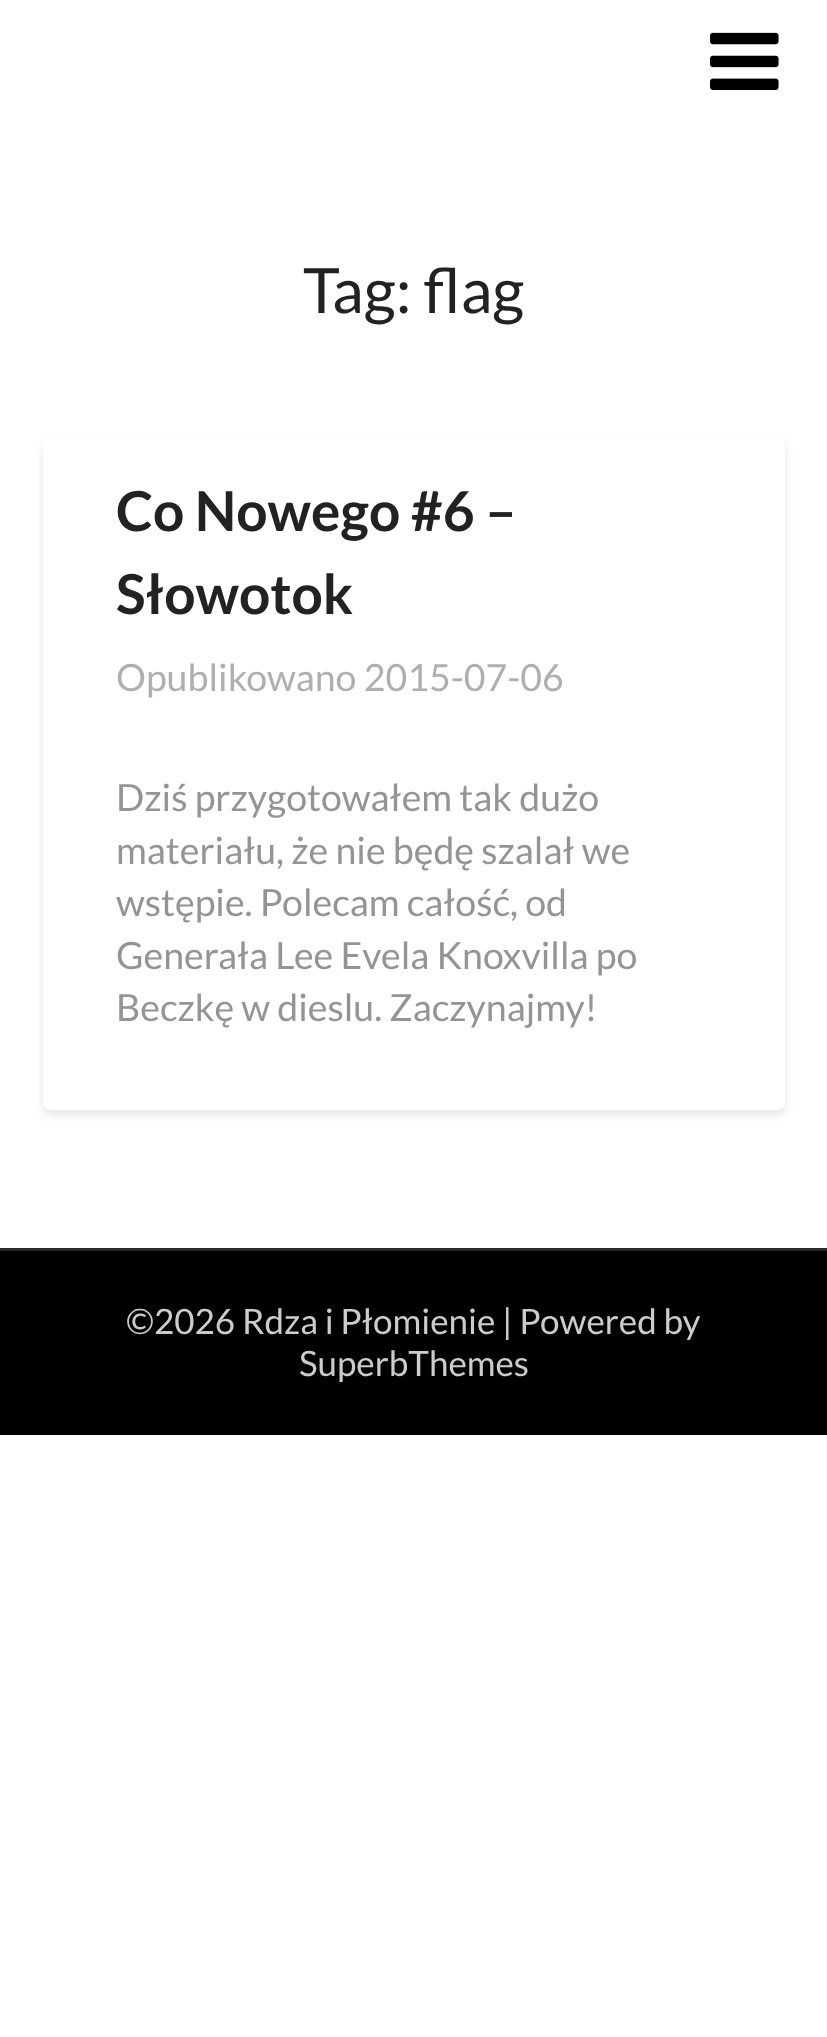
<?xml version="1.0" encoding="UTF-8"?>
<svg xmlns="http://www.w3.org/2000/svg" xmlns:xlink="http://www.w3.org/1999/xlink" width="827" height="2037">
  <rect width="100%" height="100%" fill="#ffffff" />
  <image x="710" y="32" width="69" height="58" xlink:href="image1.png" />
  <rect x="43" y="443" width="742" height="672" rx="8" fill="#000000" fill-opacity="0.1" filter="blur(5px)" />
  <rect x="43" y="438" width="742" height="672" rx="8" fill="#ffffff" />
  <rect y="1251" width="827" height="184" fill="#000000" />
  <rect y="1248" width="827" height="3" fill="#292929" />
  <text x="303" y="313" style="font-family: Lato; font-size: 62.5px; fill: #222222">Tag: flag</text>
  <text x="116" y="531" style="font-family: Lato; font-size: 55px; font-weight: bold; fill: #222222">Co Nowego #6 –</text>
  <text x="116" y="614" style="font-family: Lato; font-size: 55px; font-weight: bold; fill: #222222">Słowotok</text>
  <text x="116" y="691" style="font-family: Lato; font-size: 37.5px; fill: #afafaf">Opublikowano 2015-07-06</text>
  <text x="116" y="811" style="font-family: Lato; font-size: 37.5px; fill: #949494">Dziś przygotowałem tak dużo</text>
  <text x="116" y="864" style="font-family: Lato; font-size: 37.5px; fill: #949494">materiału, że nie będę szalał we</text>
  <text x="116" y="916" style="font-family: Lato; font-size: 37.5px; fill: #949494">wstępie. Polecam całość, od</text>
  <text x="116" y="969" style="font-family: Lato; font-size: 37.5px; fill: #949494">Generała Lee Evela Knoxvilla po</text>
  <text x="116" y="1021" style="font-family: Lato; font-size: 37.5px; fill: #949494">Beczkę w dieslu. Zaczynajmy!</text>
  <text x="126" y="1334" style="font-family: Lato; font-size: 35px; fill: #cccccc">©2026 Rdza i Płomienie | Powered by</text>
  <text x="299" y="1376" style="font-family: Lato; font-size: 35px; fill: #cccccc">SuperbThemes</text>
</svg>
